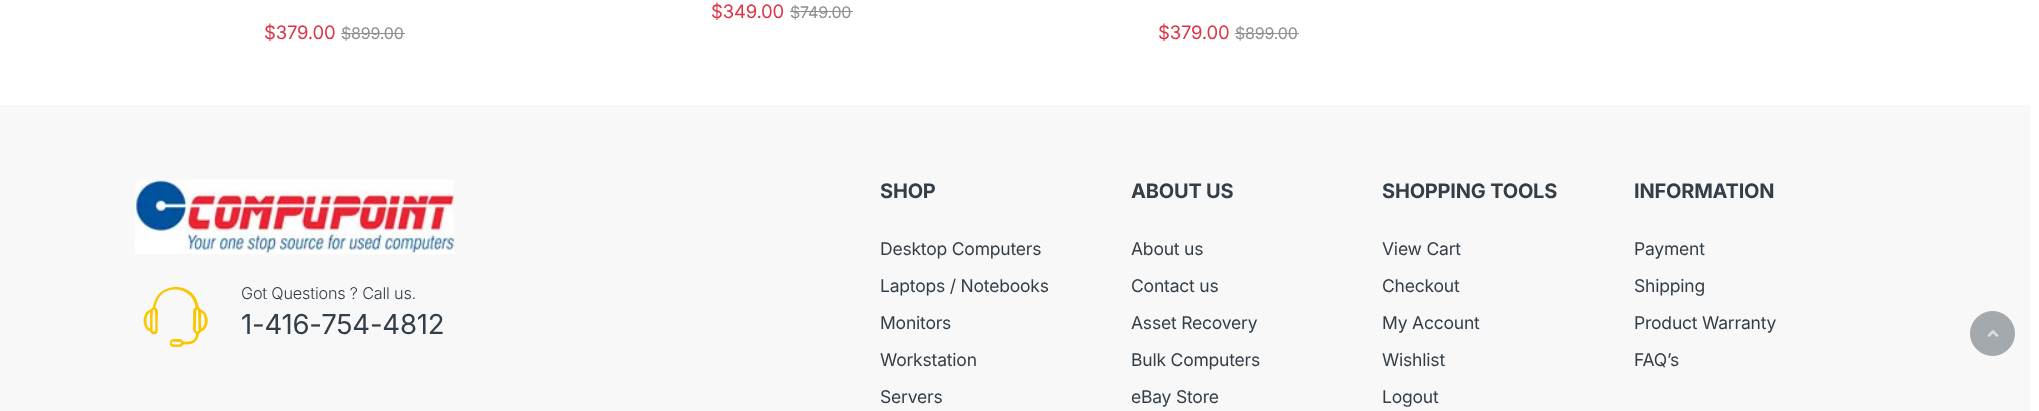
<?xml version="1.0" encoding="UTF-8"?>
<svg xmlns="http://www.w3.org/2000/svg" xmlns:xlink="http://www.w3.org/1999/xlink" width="2039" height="411">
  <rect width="100%" height="100%" fill="#ffffff" />
  <rect x="790" y="11" width="63" height="1" fill="#8f8f8f" />
  <rect x="341" y="33" width="64" height="1" fill="#8f8f8f" />
  <rect x="1235" y="33" width="64" height="1" fill="#8f8f8f" />
  <rect y="105" width="2030" height="306" fill="#f8f8f8" />
  <image x="135" y="179" width="319" height="75" xlink:href="image1.png" />
  <image x="143" y="286" width="65" height="61" xlink:href="image2.png" />
  <circle cx="1992.5" cy="333.5" r="22" fill="#a4a9ae" stroke="#a4a9ae" />
  <image x="1987" y="330" width="12" height="7" xlink:href="image3.png" />
  <text x="711" y="18" style="font-family: Inter; font-size: 18.5px; letter-spacing: -0.2px; fill: #dc3545">$349.00</text>
  <text x="790" y="18" style="font-family: Inter; font-size: 16px; letter-spacing: -0.2px; fill: #8f8f8f">$749.00</text>
  <text x="264" y="39" style="font-family: Inter; font-size: 18.5px; letter-spacing: -0.2px; fill: #dc3545">$379.00</text>
  <text x="341" y="39" style="font-family: Inter; font-size: 16px; letter-spacing: -0.2px; fill: #8f8f8f">$899.00</text>
  <text x="1158" y="39" style="font-family: Inter; font-size: 18.5px; letter-spacing: -0.2px; fill: #dc3545">$379.00</text>
  <text x="1235" y="39" style="font-family: Inter; font-size: 16px; letter-spacing: -0.2px; fill: #8f8f8f">$899.00</text>
  <text x="241" y="299" style="font-family: Inter; font-size: 16.25px; font-weight: 300; letter-spacing: -0.2px; fill: #333e48">Got Questions ? Call us.</text>
  <text x="241" y="334" style="font-family: Inter; font-size: 27.5px; letter-spacing: -0.2px; fill: #333e48">1-416-754-4812</text>
  <text x="880" y="198" style="font-family: Inter; font-size: 20px; font-weight: bold; letter-spacing: -0.2px; fill: #333e48">SHOP</text>
  <text x="880" y="255" style="font-family: Inter; font-size: 17.5px; letter-spacing: -0.2px; fill: #333e48">Desktop Computers</text>
  <text x="880" y="292" style="font-family: Inter; font-size: 17.5px; letter-spacing: -0.2px; fill: #333e48">Laptops / Notebooks</text>
  <text x="880" y="329" style="font-family: Inter; font-size: 17.5px; letter-spacing: -0.2px; fill: #333e48">Monitors</text>
  <text x="880" y="366" style="font-family: Inter; font-size: 17.5px; letter-spacing: -0.2px; fill: #333e48">Workstation</text>
  <text x="880" y="403" style="font-family: Inter; font-size: 17.5px; letter-spacing: -0.2px; fill: #333e48">Servers</text>
  <text x="1131" y="198" style="font-family: Inter; font-size: 20px; font-weight: bold; letter-spacing: -0.2px; fill: #333e48">ABOUT US</text>
  <text x="1131" y="255" style="font-family: Inter; font-size: 17.5px; letter-spacing: -0.2px; fill: #333e48">About us</text>
  <text x="1131" y="292" style="font-family: Inter; font-size: 17.5px; letter-spacing: -0.2px; fill: #333e48">Contact us</text>
  <text x="1131" y="329" style="font-family: Inter; font-size: 17.5px; letter-spacing: -0.2px; fill: #333e48">Asset Recovery</text>
  <text x="1131" y="366" style="font-family: Inter; font-size: 17.5px; letter-spacing: -0.2px; fill: #333e48">Bulk Computers</text>
  <text x="1131" y="403" style="font-family: Inter; font-size: 17.5px; letter-spacing: -0.2px; fill: #333e48">eBay Store</text>
  <text x="1382" y="198" style="font-family: Inter; font-size: 20px; font-weight: bold; letter-spacing: -0.2px; fill: #333e48">SHOPPING TOOLS</text>
  <text x="1382" y="255" style="font-family: Inter; font-size: 17.5px; letter-spacing: -0.2px; fill: #333e48">View Cart</text>
  <text x="1382" y="292" style="font-family: Inter; font-size: 17.5px; letter-spacing: -0.2px; fill: #333e48">Checkout</text>
  <text x="1382" y="329" style="font-family: Inter; font-size: 17.5px; letter-spacing: -0.2px; fill: #333e48">My Account</text>
  <text x="1382" y="366" style="font-family: Inter; font-size: 17.5px; letter-spacing: -0.2px; fill: #333e48">Wishlist</text>
  <text x="1382" y="403" style="font-family: Inter; font-size: 17.5px; letter-spacing: -0.2px; fill: #333e48">Logout</text>
  <text x="1634" y="198" style="font-family: Inter; font-size: 20px; font-weight: bold; letter-spacing: -0.2px; fill: #333e48">INFORMATION</text>
  <text x="1634" y="255" style="font-family: Inter; font-size: 17.5px; letter-spacing: -0.2px; fill: #333e48">Payment</text>
  <text x="1634" y="292" style="font-family: Inter; font-size: 17.5px; letter-spacing: -0.2px; fill: #333e48">Shipping</text>
  <text x="1634" y="329" style="font-family: Inter; font-size: 17.5px; letter-spacing: -0.2px; fill: #333e48">Product Warranty</text>
  <text x="1634" y="366" style="font-family: Inter; font-size: 17.5px; letter-spacing: -0.2px; fill: #333e48">FAQ’s</text>
</svg>
